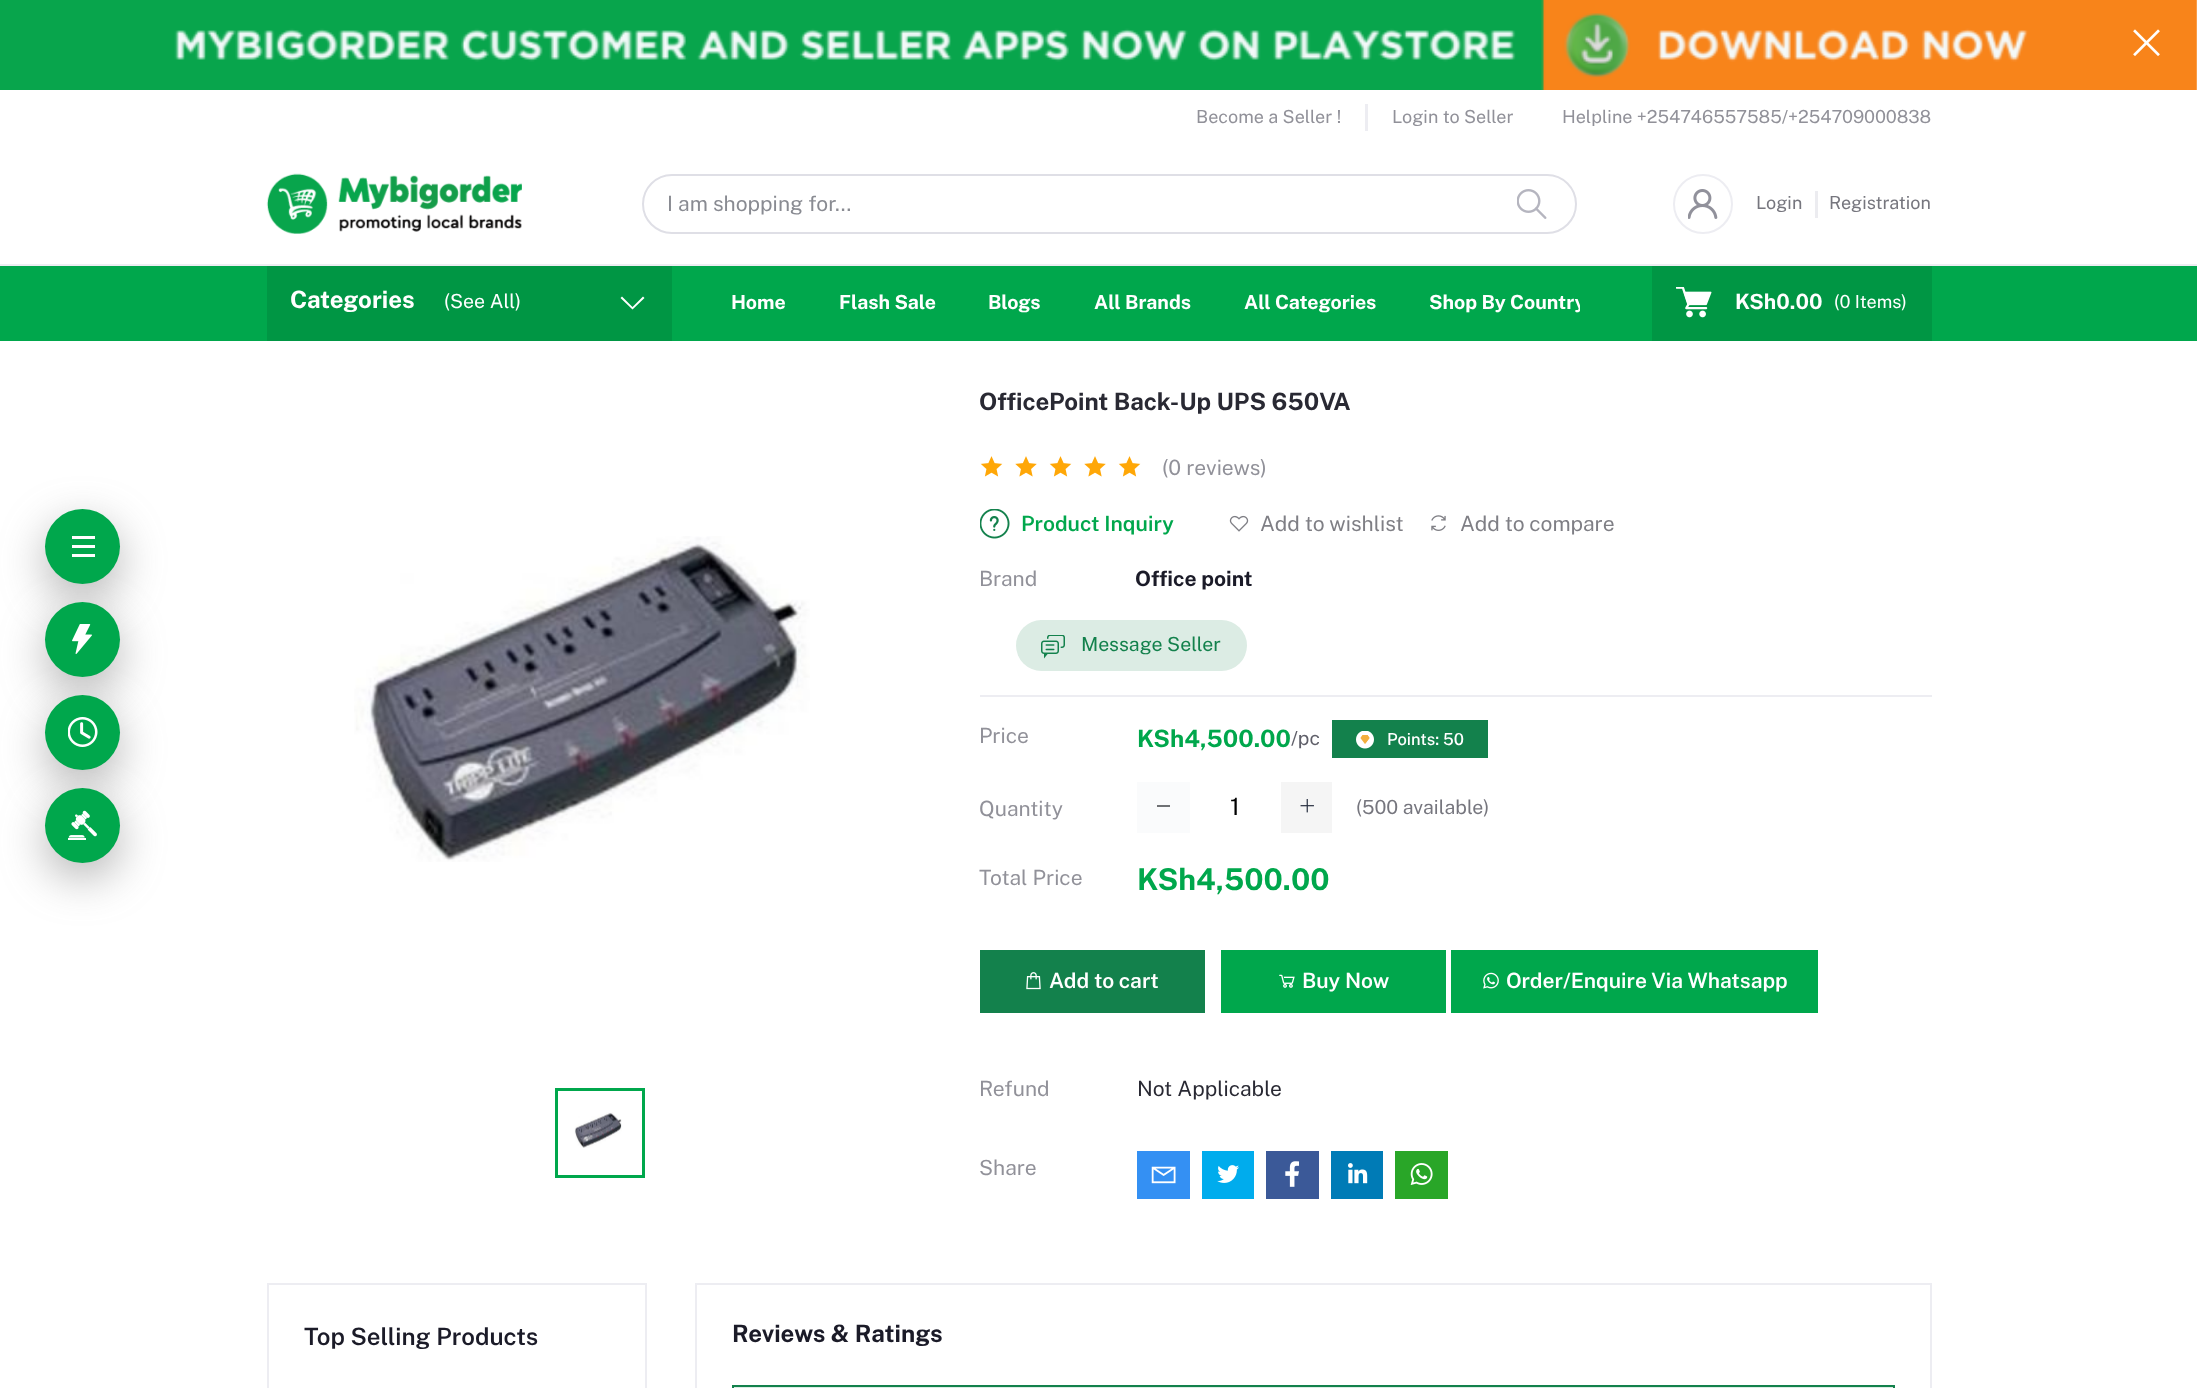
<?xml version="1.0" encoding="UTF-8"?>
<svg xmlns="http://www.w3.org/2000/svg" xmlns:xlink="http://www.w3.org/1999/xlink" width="2197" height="1388">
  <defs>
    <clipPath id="clip1"><rect x="708" y="266" width="872" height="75" /></clipPath>
  </defs>
  <rect width="100%" height="100%" fill="#ffffff" />
  <rect x="45" y="524" width="75" height="75" rx="37.5" fill="#696969" fill-opacity="0.5" filter="blur(22.5px)" />
  <rect x="45" y="617" width="75" height="75" rx="37.5" fill="#696969" fill-opacity="0.5" filter="blur(22.5px)" />
  <circle cx="82.5" cy="546.5" r="37.5" fill="#00a74c" />
  <rect x="72" y="545" width="23" height="3" fill="#ffffff" />
  <rect x="72" y="536" width="23" height="3" fill="#ffffff" />
  <rect x="72" y="554" width="23" height="3" fill="#ffffff" />
  <rect x="45" y="710" width="75" height="75" rx="37.5" fill="#696969" fill-opacity="0.5" filter="blur(22.5px)" />
  <circle cx="82.5" cy="639.5" r="37.5" fill="#00a74c" />
  <image x="72" y="624" width="20" height="30" xlink:href="image1.png" />
  <rect x="45" y="803" width="75" height="75" rx="37.5" fill="#696969" fill-opacity="0.5" filter="blur(22.5px)" />
  <circle cx="82.5" cy="732.5" r="37.5" fill="#00a74c" />
  <image x="68" y="717" width="30" height="30" xlink:href="image2.png" />
  <circle cx="82.5" cy="825.5" r="37.5" fill="#00a74c" />
  <image x="68" y="810" width="29" height="30" xlink:href="image3.png" />
  <image x="0" y="0" width="2197" height="90" xlink:href="image4.png" />
  <image x="2133" y="29" width="27" height="27" xlink:href="image5.png" />
  <rect x="1365" y="104" width="3" height="27" fill="#ededf2" />
  <rect y="264" width="2197" height="2" fill="#ededf2" />
  <image x="266" y="173" width="256" height="61" xlink:href="image6.png" />
  <rect x="643" y="175" width="933" height="58" rx="29" fill="none" stroke="#dfdfe6" stroke-width="2" />
  <image x="1517" y="189" width="30" height="30" xlink:href="image7.png" />
  <circle cx="1703" cy="204" r="29" fill="none" stroke="#ededf2" stroke-width="2" />
  <image x="1688" y="189" width="30" height="30" xlink:href="image8.png" />
  <rect x="1815" y="191" width="3" height="27" fill="#ececf0" />
  <rect y="266" width="2197" height="75" fill="#00a74c" />
  <rect x="267" y="266" width="405" height="75" fill="#009644" />
  <path d="M 622 296.5 l -1.5 1.5 l 12 11.5 l 12 -11.5 l -1.5 -1.5 l -10.5 10.5 z" fill="#ffffff" />
  <rect x="1652" y="266" width="280" height="75" fill="#009644" />
  <image x="1676" y="287" width="36" height="31" xlink:href="image9.png" />
  <image x="354" y="536" width="456" height="326" xlink:href="image10.png" />
  <rect x="556.5" y="1089.5" width="87" height="87" fill="none" stroke="#00a74c" stroke-width="3" />
  <image x="574" y="1112" width="48" height="36" xlink:href="image11.png" />
  <image x="980" y="456" width="23" height="21" xlink:href="image12.png" />
  <image x="1015" y="456" width="22" height="21" xlink:href="image13.png" />
  <image x="1049" y="456" width="23" height="21" xlink:href="image12.png" />
  <image x="1084" y="456" width="22" height="21" xlink:href="image13.png" />
  <image x="1118" y="456" width="23" height="21" xlink:href="image12.png" />
  <image x="980" y="509" width="30" height="30" xlink:href="image14.png" />
  <image x="1229" y="515" width="20" height="17" xlink:href="image15.png" />
  <image x="1431" y="515" width="15" height="16" xlink:href="image16.png" />
  <rect x="1016" y="620" width="231" height="51" rx="25.5" fill="#dcece4" />
  <image x="1041" y="635" width="24" height="24" xlink:href="image17.png" />
  <rect x="980" y="695" width="952" height="2" fill="#ededf2" />
  <rect x="1332" y="720" width="156" height="38" fill="#13814c" />
  <image x="1356" y="731" width="18" height="18" xlink:href="image18.png" />
  <rect x="1137" y="782" width="53" height="51" fill="#fafbfc" />
  <rect x="1157" y="805" width="13" height="2" fill="#6f7174" />
  <rect x="1281" y="782" width="51" height="51" fill="#f5f5f5" />
  <image x="1300" y="799" width="14" height="14" xlink:href="image19.png" />
  <rect x="980" y="950" width="225" height="63" fill="#13814c" />
  <image x="1026" y="972" width="15" height="18" xlink:href="image20.png" />
  <rect x="1221" y="950" width="225" height="63" fill="#00a74c" />
  <image x="1279" y="974" width="16" height="14" xlink:href="image21.png" />
  <rect x="1451" y="950" width="367" height="63" fill="#00a74c" />
  <image x="1483" y="972" width="16" height="17" xlink:href="image22.png" />
  <rect x="1137" y="1151" width="53" height="48" fill="#3490f3" />
  <image x="1151" y="1166" width="25" height="18" xlink:href="image23.png" />
  <rect x="1202" y="1151" width="52" height="48" fill="#00aced" />
  <image x="1217" y="1165" width="22" height="18" xlink:href="image24.png" />
  <rect x="1266" y="1151" width="53" height="48" fill="#3b5998" />
  <image x="1285" y="1161" width="15" height="26" xlink:href="image25.png" />
  <rect x="1331" y="1151" width="52" height="48" fill="#007bb6" />
  <image x="1348" y="1163" width="20" height="21" xlink:href="image26.png" />
  <rect x="1395" y="1151" width="53" height="48" fill="#29a628" />
  <image x="1410" y="1163" width="23" height="22" xlink:href="image27.png" />
  <rect x="268" y="1284" width="378" height="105" fill="none" stroke="#ededf2" stroke-width="2" />
  <rect x="696" y="1284" width="1235" height="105" fill="none" stroke="#ededf2" stroke-width="2" />
  <rect x="733" y="1386" width="1161" height="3" fill="#dcece4" stroke="#13814c" stroke-width="2" />
  <text x="1196" y="123" style="font-family: Public Sans; font-size: 18px; fill: #919199">Become a Seller !</text>
  <text x="1392" y="123" style="font-family: Public Sans; font-size: 18px; fill: #919199">Login to Seller</text>
  <text x="1562" y="123" style="font-family: Public Sans; font-size: 18px; fill: #919199">Helpline +254746557585/+254709000838</text>
  <text x="667" y="211" style="font-family: Public Sans; font-size: 21px; fill: #898b92">I am shopping for...</text>
  <text x="1756" y="209" style="font-family: Public Sans; font-size: 18px; fill: #76767e">Login</text>
  <text x="1829" y="209" style="font-family: Public Sans; font-size: 18px; fill: #76767e">Registration</text>
  <text x="290" y="308" style="font-family: Public Sans; font-size: 24px; font-weight: bold; fill: #ffffff">Categories</text>
  <text x="444" y="308" style="font-family: Public Sans; font-size: 19.5px; fill: #ffffff">(See All)</text>
  <text x="731" y="309" style="font-family: Public Sans; font-size: 19.5px; font-weight: bold; fill: #ffffff">Home</text>
  <text x="839" y="309" style="font-family: Public Sans; font-size: 19.5px; font-weight: bold; fill: #ffffff">Flash Sale</text>
  <text x="988" y="309" style="font-family: Public Sans; font-size: 19.5px; font-weight: bold; fill: #ffffff">Blogs</text>
  <text x="1094" y="309" style="font-family: Public Sans; font-size: 19.5px; font-weight: bold; fill: #ffffff">All Brands</text>
  <text x="1244" y="309" style="font-family: Public Sans; font-size: 19.5px; font-weight: bold; fill: #ffffff">All Categories</text>
  <g clip-path="url(#clip1)">
    <text x="1429" y="309" style="font-family: Public Sans; font-size: 19.5px; font-weight: bold; fill: #ffffff">Shop By Country</text>
  </g>
  <text x="1735" y="309" style="font-family: Public Sans; font-size: 21px; font-weight: bold; fill: #ffffff">KSh0.00</text>
  <text x="1834" y="308" style="font-family: Public Sans; font-size: 18px; fill: #ffffff">(0 Items)</text>
  <text x="979" y="410" style="font-family: Public Sans; font-size: 24px; font-weight: bold; fill: #292933">OfficePoint Back-Up UPS 650VA</text>
  <text x="1162" y="475" style="font-family: Public Sans; font-size: 21px; fill: #919199">(0 reviews)</text>
  <text x="1021" y="531" style="font-family: Public Sans; font-size: 21px; font-weight: 600; fill: #00a74c">Product Inquiry</text>
  <text x="1260" y="531" style="font-family: Public Sans; font-size: 21px; fill: #7f7f85">Add to wishlist</text>
  <text x="1460" y="531" style="font-family: Public Sans; font-size: 21px; fill: #7f7f85">Add to compare</text>
  <text x="979" y="586" style="font-family: Public Sans; font-size: 21px; fill: #919199">Brand</text>
  <text x="1135" y="586" style="font-family: Public Sans; font-size: 21px; font-weight: bold; fill: #1b1b28">Office point</text>
  <text x="1081" y="651" style="font-family: Public Sans; font-size: 19.5px; fill: #13814c">Message Seller</text>
  <text x="979" y="743" style="font-family: Public Sans; font-size: 21px; fill: #919199">Price</text>
  <text x="1137" y="747" style="font-family: Public Sans; font-size: 24px; font-weight: bold; fill: #00a74c">KSh4,500.00</text>
  <text x="1291" y="745" style="font-family: Public Sans; font-size: 19.5px; fill: #5f5f69">/pc</text>
  <text x="1387" y="745" style="font-family: Public Sans; font-size: 16.5px; font-weight: 500; fill: #ffffff">Points: 50</text>
  <text x="979" y="816" style="font-family: Public Sans; font-size: 21px; fill: #919199">Quantity</text>
  <text x="1230" y="815" style="font-family: Public Sans; font-size: 24px; fill: #000000">1</text>
  <text x="1356" y="814" style="font-family: Public Sans; font-size: 19.5px; fill: #76767e">(500 available)</text>
  <text x="979" y="885" style="font-family: Public Sans; font-size: 21px; fill: #919199">Total Price</text>
  <text x="1137" y="890" style="font-family: Public Sans; font-size: 30px; font-weight: bold; fill: #00a74c">KSh4,500.00</text>
  <text x="1049" y="988" style="font-family: Public Sans; font-size: 21px; font-weight: 600; fill: #ffffff">Add to cart</text>
  <text x="1302" y="988" style="font-family: Public Sans; font-size: 21px; font-weight: 600; fill: #ffffff">Buy Now</text>
  <text x="1506" y="988" style="font-family: Public Sans; font-size: 21px; font-weight: 600; fill: #ffffff">Order/Enquire Via Whatsapp</text>
  <text x="979" y="1096" style="font-family: Public Sans; font-size: 21px; fill: #919199">Refund</text>
  <text x="1137" y="1096" style="font-family: Public Sans; font-size: 21px; fill: #292933">Not Applicable</text>
  <text x="979" y="1175" style="font-family: Public Sans; font-size: 21px; fill: #919199">Share</text>
  <text x="304" y="1345" style="font-family: Public Sans; font-size: 24px; font-weight: 600; fill: #1b1b28">Top Selling Products</text>
  <text x="732" y="1342" style="font-family: Public Sans; font-size: 24px; font-weight: bold; fill: #1b1b28">Reviews &amp; Ratings</text>
</svg>
